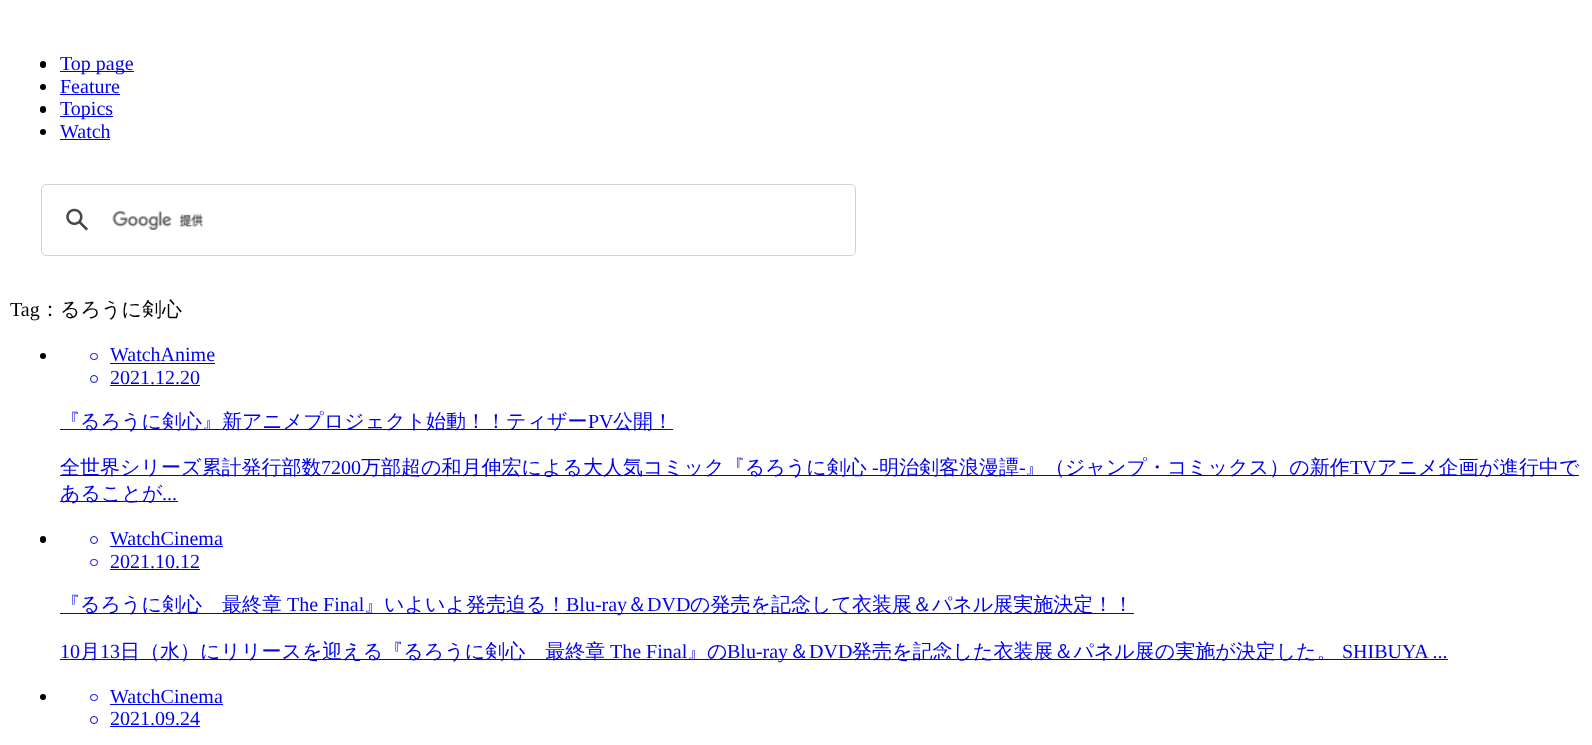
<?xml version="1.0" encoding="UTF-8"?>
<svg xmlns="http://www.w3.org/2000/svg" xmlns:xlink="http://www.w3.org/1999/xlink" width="1592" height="745">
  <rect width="100%" height="100%" fill="#ffffff" />
  <rect x="40" y="61" width="6" height="7" rx="3" fill="#000000" />
  <rect x="60" y="71" width="74" height="1" fill="#0000ee" />
  <circle cx="43" cy="87" r="3" fill="#000000" />
  <rect x="60" y="94" width="60" height="1" fill="#0000ee" />
  <rect x="40" y="106" width="6" height="7" rx="3" fill="#000000" />
  <rect x="60" y="116" width="53" height="1" fill="#0000ee" />
  <circle cx="43" cy="132" r="3" fill="#000000" />
  <rect x="60" y="139" width="50" height="1" fill="#0000ee" />
  <rect x="41.5" y="184.5" width="814" height="71" rx="4.5" fill="none" stroke="#d2d2d2" />
  <image x="66" y="208" width="22" height="23" xlink:href="image1.png" />
  <image x="112" y="211" width="92" height="19" xlink:href="image2.png" />
  <circle cx="43" cy="356" r="3" fill="#000000" />
  <rect x="90.5" y="353.5" width="7" height="6" rx="3" fill="none" stroke="#0000ee" />
  <rect x="110" y="363" width="105" height="1" fill="#0000ee" />
  <circle cx="94" cy="379" r="3.5" fill="none" stroke="#0000ee" />
  <rect x="110" y="385" width="90" height="1" fill="#0000ee" />
  <rect x="60" y="429" width="613" height="1" fill="#0000ee" />
  <rect x="60" y="475" width="1519" height="1" fill="#0000ee" />
  <rect x="60" y="501" width="118" height="1" fill="#0000ee" />
  <rect x="40" y="536" width="6" height="7" rx="3" fill="#000000" />
  <circle cx="94" cy="540" r="3.5" fill="none" stroke="#0000ee" />
  <rect x="110" y="546" width="113" height="1" fill="#0000ee" />
  <rect x="90.5" y="559.5" width="7" height="6" rx="3" fill="none" stroke="#0000ee" />
  <rect x="110" y="569" width="90" height="1" fill="#0000ee" />
  <rect x="60" y="613" width="1074" height="1" fill="#0000ee" />
  <rect x="60" y="659" width="1388" height="1" fill="#0000ee" />
  <circle cx="43" cy="697" r="3" fill="#000000" />
  <rect x="90.5" y="694.5" width="7" height="6" rx="3" fill="none" stroke="#0000ee" />
  <rect x="110" y="704" width="113" height="1" fill="#0000ee" />
  <circle cx="94" cy="720" r="3.5" fill="none" stroke="#0000ee" />
  <rect x="110" y="726" width="90" height="1" fill="#0000ee" />
  <text x="60" y="70" style="font-family: Liberation Serif; font-size: 20px; fill: #0000ee">Top page</text>
  <text x="60" y="93" style="font-family: Liberation Serif; font-size: 20px; fill: #0000ee">Feature</text>
  <text x="60" y="115" style="font-family: Liberation Serif; font-size: 20px; fill: #0000ee">Topics</text>
  <text x="60" y="138" style="font-family: Liberation Serif; font-size: 20px; fill: #0000ee">Watch</text>
  <text x="10" y="316" style="font-family: Liberation Serif; font-size: 20px; fill: #000000">Tag</text>
  <text x="40" y="316" style="font-family: WenQuanYi Zen Hei; font-size: 20px; font-weight: 500; fill: #000000">：るろうに剣心</text>
  <text x="110" y="361" style="font-family: Liberation Serif; font-size: 20px; fill: #0000ee">WatchAnime</text>
  <text x="110" y="384" style="font-family: Liberation Serif; font-size: 20px; fill: #0000ee">2021.12.20</text>
  <text x="60" y="428" style="font-family: WenQuanYi Zen Hei; font-size: 20px; font-weight: 500; fill: #0000ee">『るろうに剣心』新アニメプロジェクト始動！！ティザー</text>
  <text x="588" y="428" style="font-family: Liberation Serif; font-size: 20px; fill: #0000ee">PV</text>
  <text x="613" y="428" style="font-family: WenQuanYi Zen Hei; font-size: 20px; font-weight: 500; fill: #0000ee">公開！</text>
  <text x="60" y="474" style="font-family: WenQuanYi Zen Hei; font-size: 20px; font-weight: 500; fill: #0000ee">全世界シリーズ累計発行部数</text>
  <text x="321" y="474" style="font-family: Liberation Serif; font-size: 20px; fill: #0000ee">7200</text>
  <text x="361" y="474" style="font-family: WenQuanYi Zen Hei; font-size: 20px; font-weight: 500; fill: #0000ee">万部超の和月伸宏による大人気コミック『るろうに剣心</text>
  <text x="872" y="474" style="font-family: Liberation Serif; font-size: 20px; fill: #0000ee">-</text>
  <text x="879" y="474" style="font-family: WenQuanYi Zen Hei; font-size: 20px; font-weight: 500; fill: #0000ee">明治剣客浪漫譚</text>
  <text x="1019" y="474" style="font-family: Liberation Serif; font-size: 20px; fill: #0000ee">-</text>
  <text x="1025" y="474" style="font-family: WenQuanYi Zen Hei; font-size: 20px; font-weight: 500; fill: #0000ee">』（ジャンプ・コミックス）の新作</text>
  <text x="1350" y="474" style="font-family: Liberation Serif; font-size: 20px; fill: #0000ee">TV</text>
  <text x="1377" y="474" style="font-family: WenQuanYi Zen Hei; font-size: 20px; font-weight: 500; fill: #0000ee">アニメ企画が進行中で</text>
  <text x="60" y="500" style="font-family: WenQuanYi Zen Hei; font-size: 20px; font-weight: 500; fill: #0000ee">あることが</text>
  <text x="162" y="500" style="font-family: Liberation Serif; font-size: 20px; fill: #0000ee">...</text>
  <text x="110" y="545" style="font-family: Liberation Serif; font-size: 20px; fill: #0000ee">WatchCinema</text>
  <text x="110" y="568" style="font-family: Liberation Serif; font-size: 20px; fill: #0000ee">2021.10.12</text>
  <text x="60" y="611" style="font-family: WenQuanYi Zen Hei; font-size: 20px; font-weight: 500; fill: #0000ee">『るろうに剣心　最終章</text>
  <text x="287" y="611" style="font-family: Liberation Serif; font-size: 20px; fill: #0000ee">The Final</text>
  <text x="364" y="611" style="font-family: WenQuanYi Zen Hei; font-size: 20px; font-weight: 500; fill: #0000ee">』いよいよ発売迫る！</text>
  <text x="566" y="611" style="font-family: Liberation Serif; font-size: 20px; fill: #0000ee">Blu-ray</text>
  <text x="627" y="611" style="font-family: WenQuanYi Zen Hei; font-size: 20px; font-weight: 500; fill: #0000ee">＆</text>
  <text x="647" y="611" style="font-family: Liberation Serif; font-size: 20px; fill: #0000ee">DVD</text>
  <text x="690" y="611" style="font-family: WenQuanYi Zen Hei; font-size: 20px; font-weight: 500; fill: #0000ee">の発売を記念して衣装展＆パネル展実施決定！！</text>
  <text x="60" y="658" style="font-family: Liberation Serif; font-size: 20px; fill: #0000ee">10</text>
  <text x="80" y="658" style="font-family: WenQuanYi Zen Hei; font-size: 20px; font-weight: 500; fill: #0000ee">月</text>
  <text x="100" y="658" style="font-family: Liberation Serif; font-size: 20px; fill: #0000ee">13</text>
  <text x="120" y="658" style="font-family: WenQuanYi Zen Hei; font-size: 20px; font-weight: 500; fill: #0000ee">日（水）にリリースを迎える『るろうに剣心　最終章</text>
  <text x="610" y="658" style="font-family: Liberation Serif; font-size: 20px; fill: #0000ee">The Final</text>
  <text x="687" y="658" style="font-family: WenQuanYi Zen Hei; font-size: 20px; font-weight: 500; fill: #0000ee">』の</text>
  <text x="727" y="658" style="font-family: Liberation Serif; font-size: 20px; fill: #0000ee">Blu-ray</text>
  <text x="789" y="658" style="font-family: WenQuanYi Zen Hei; font-size: 20px; font-weight: 500; fill: #0000ee">＆</text>
  <text x="809" y="658" style="font-family: Liberation Serif; font-size: 20px; fill: #0000ee">DVD</text>
  <text x="852" y="658" style="font-family: WenQuanYi Zen Hei; font-size: 20px; font-weight: 500; fill: #0000ee">発売を記念した衣装展＆パネル展の実施が決定した。</text>
  <text x="1342" y="658" style="font-family: Liberation Serif; font-size: 20px; fill: #0000ee">SHIBUYA ...</text>
  <text x="110" y="703" style="font-family: Liberation Serif; font-size: 20px; fill: #0000ee">WatchCinema</text>
  <text x="110" y="725" style="font-family: Liberation Serif; font-size: 20px; fill: #0000ee">2021.09.24</text>
</svg>
